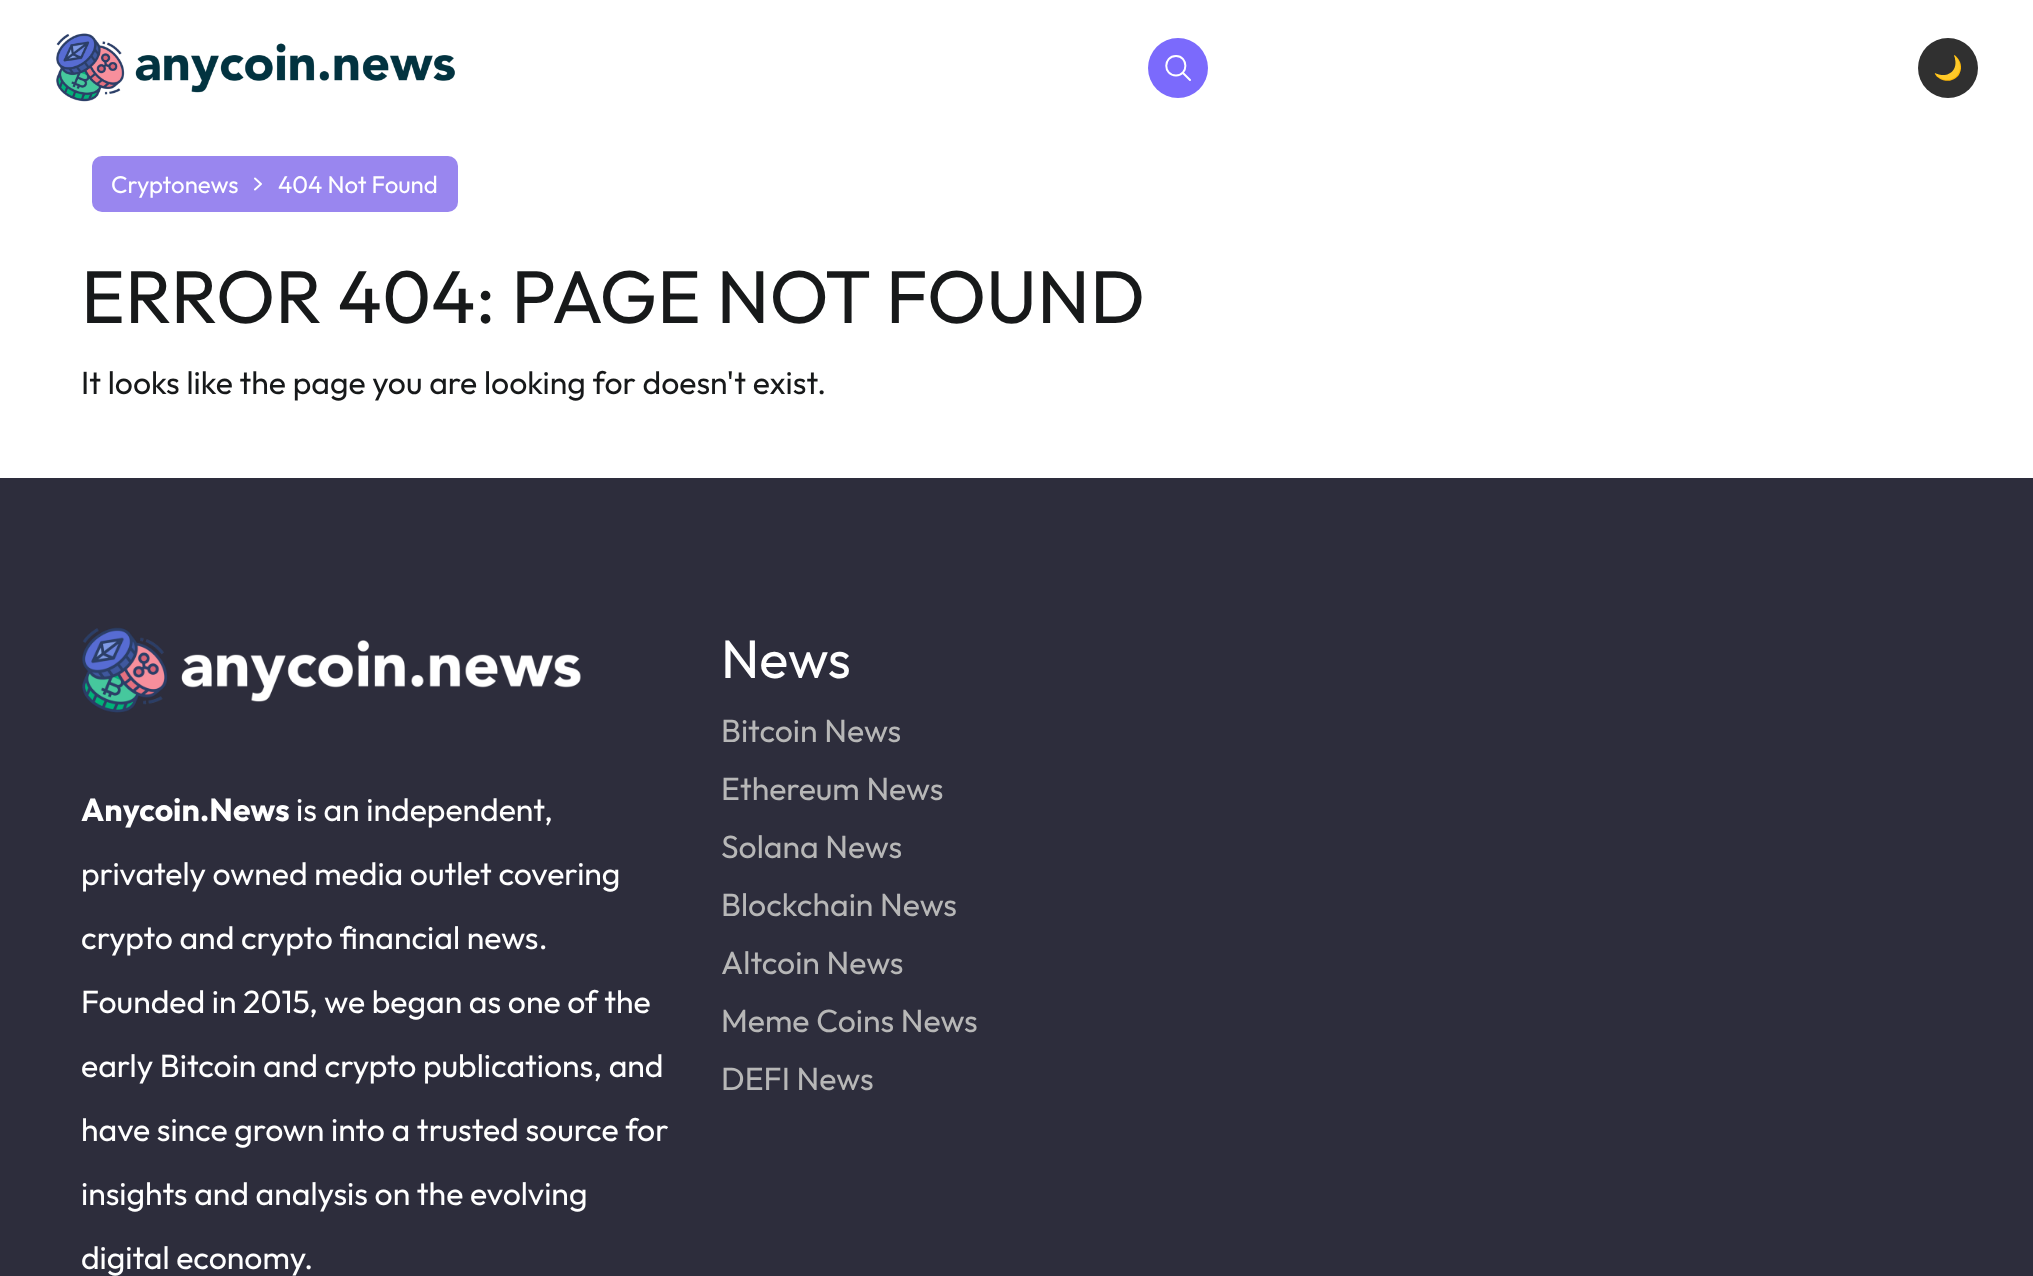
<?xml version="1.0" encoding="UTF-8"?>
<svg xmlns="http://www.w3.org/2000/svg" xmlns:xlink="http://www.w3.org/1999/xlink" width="2033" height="1276">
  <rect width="100%" height="100%" fill="#ffffff" />
  <image x="56" y="33" width="399" height="69" xlink:href="image1.png" />
  <circle cx="1178" cy="68" r="30" fill="#7b6afc" />
  <path d="M 1176 56 c -13 0 -13 19.5 0 19.5 c 12.5 0 12.5 -19.5 0 -19.5 z" fill="none" stroke="#ffffff" stroke-width="2" />
  <path d="M 1183 73 l 7 7" fill="none" stroke="#ffffff" stroke-width="2" stroke-linecap="round" />
  <circle cx="1948" cy="68" r="30" fill="#303030" />
  <rect x="92" y="156" width="366" height="56" rx="10" fill="#9986ef" />
  <path d="M 255 178.5 l 6 5.5 l -6 5.5" fill="none" stroke="#ffffff" stroke-width="1.9" stroke-linecap="round" stroke-linejoin="round" />
  <rect y="478" width="2033" height="798" fill="#2d2d3c" />
  <image x="82" y="627" width="499" height="86" xlink:href="image2.png" />
  <text x="1933" y="76" style="font-family: Noto Color Emoji; font-size: 24px; fill: #000000">🌙</text>
  <text x="111" y="193" style="font-family: Outfit; font-size: 24px; fill: #ffffff">Cryptonews</text>
  <text x="278" y="193" style="font-family: Outfit; font-size: 24px; fill: #ffffff">404 Not Found</text>
  <text x="81" y="323" style="font-family: Outfit; font-size: 74.5px; fill: #17191a">ERROR 404: PAGE NOT FOUND</text>
  <text x="81" y="394" style="font-family: Outfit; font-size: 32px; fill: #17191a">It looks like the page you are looking for doesn't exist.</text>
  <text x="81" y="821" style="font-family: Outfit; font-size: 32px; font-weight: bold; fill: #ffffff">Anycoin.News</text>
  <text x="296" y="821" style="font-family: Outfit; font-size: 32px; fill: #ffffff">is an independent,</text>
  <text x="81" y="885" style="font-family: Outfit; font-size: 32px; fill: #ffffff">privately owned media outlet covering</text>
  <text x="81" y="949" style="font-family: Outfit; font-size: 32px; fill: #ffffff">crypto and crypto financial news.</text>
  <text x="81" y="1013" style="font-family: Outfit; font-size: 32px; fill: #ffffff">Founded in 2015, we began as one of the</text>
  <text x="81" y="1077" style="font-family: Outfit; font-size: 32px; fill: #ffffff">early Bitcoin and crypto publications, and</text>
  <text x="81" y="1141" style="font-family: Outfit; font-size: 32px; fill: #ffffff">have since grown into a trusted source for</text>
  <text x="81" y="1205" style="font-family: Outfit; font-size: 32px; fill: #ffffff">insights and analysis on the evolving</text>
  <text x="81" y="1269" style="font-family: Outfit; font-size: 32px; fill: #ffffff">digital economy.</text>
  <text x="721" y="678" style="font-family: Outfit; font-size: 54px; fill: #ffffff">News</text>
  <text x="721" y="742" style="font-family: Outfit; font-size: 32px; fill: #b7b7b7">Bitcoin News</text>
  <text x="721" y="800" style="font-family: Outfit; font-size: 32px; fill: #b7b7b7">Ethereum News</text>
  <text x="721" y="858" style="font-family: Outfit; font-size: 32px; fill: #b7b7b7">Solana News</text>
  <text x="721" y="916" style="font-family: Outfit; font-size: 32px; fill: #b7b7b7">Blockchain News</text>
  <text x="721" y="974" style="font-family: Outfit; font-size: 32px; fill: #b7b7b7">Altcoin News</text>
  <text x="721" y="1032" style="font-family: Outfit; font-size: 32px; fill: #b7b7b7">Meme Coins News</text>
  <text x="721" y="1090" style="font-family: Outfit; font-size: 32px; fill: #b7b7b7">DEFI News</text>
</svg>
